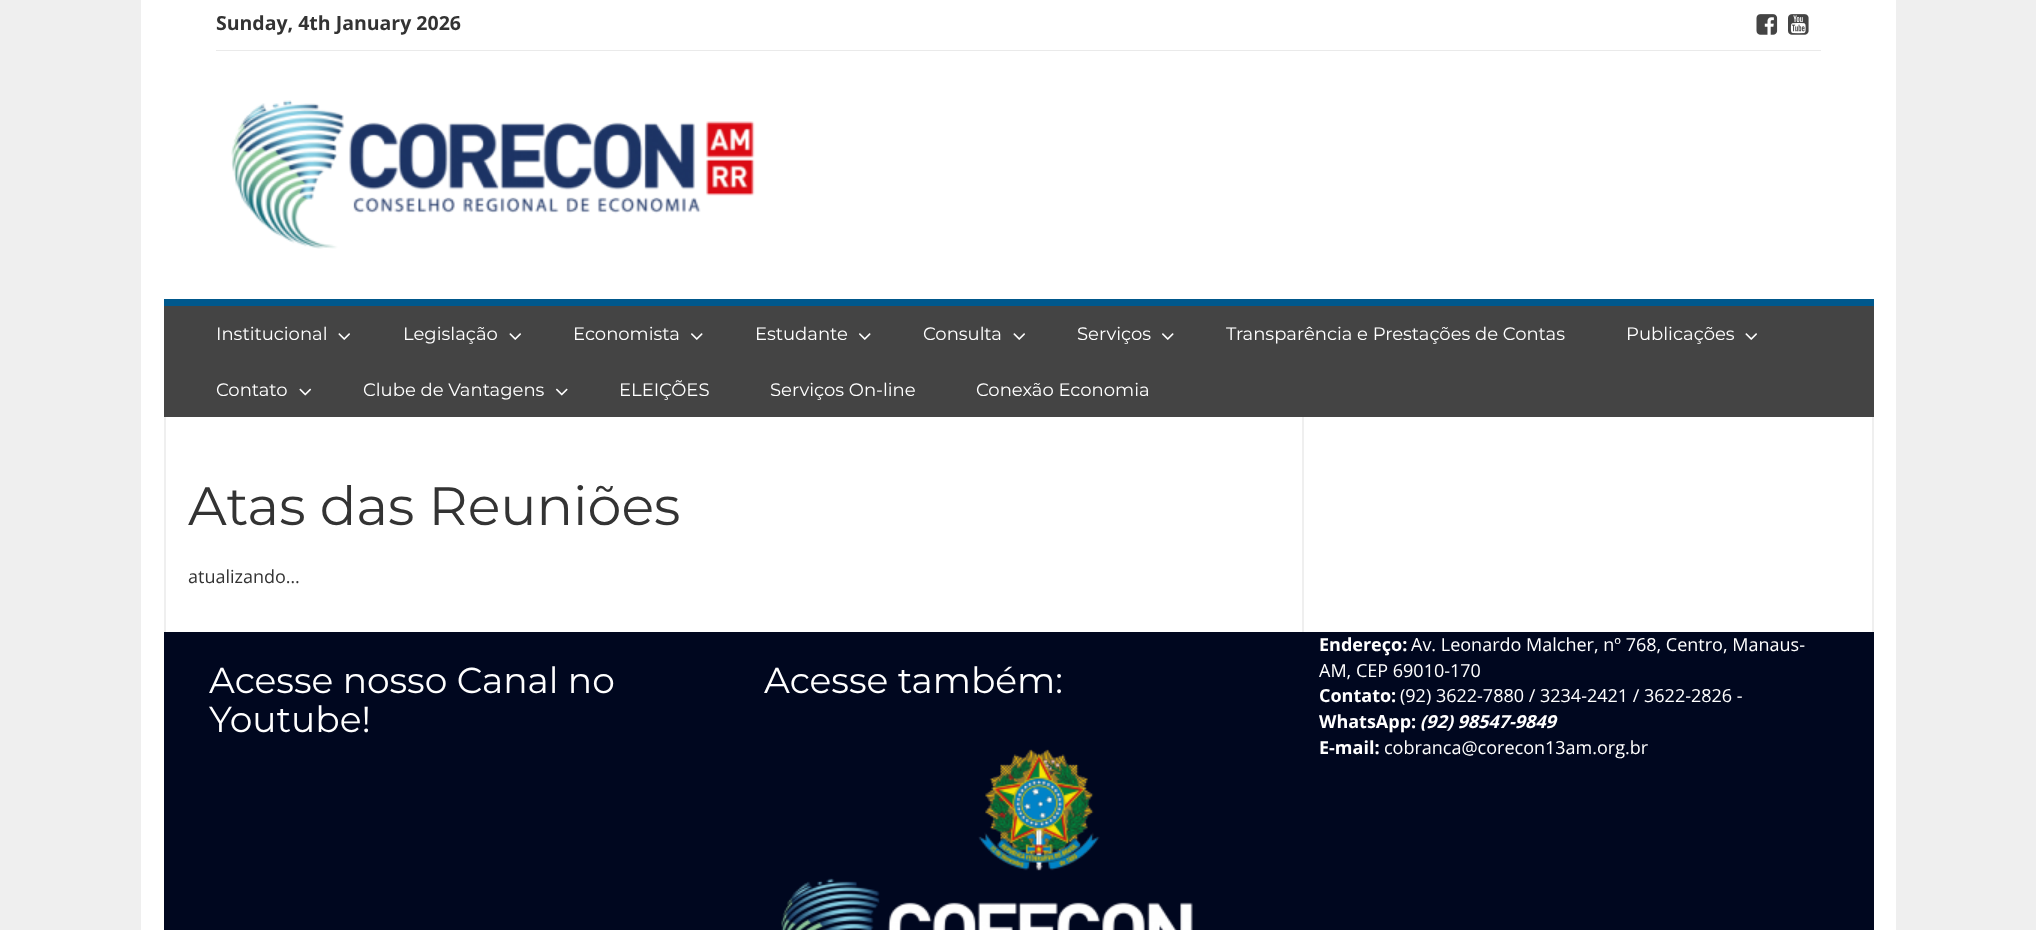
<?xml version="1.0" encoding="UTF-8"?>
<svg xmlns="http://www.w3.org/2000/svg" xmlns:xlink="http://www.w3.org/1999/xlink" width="2036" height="930">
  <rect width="100%" height="100%" fill="#efefef" />
  <rect x="141" width="1755" height="930" fill="#ffffff" />
  <rect x="216" y="50" width="1605" height="1" fill="#eaeaea" />
  <image x="1756" y="14" width="22" height="21" xlink:href="image1.png" />
  <image x="1788" y="14" width="21" height="21" xlink:href="image2.png" />
  <image x="231" y="100" width="524" height="149" xlink:href="image3.png" />
  <rect x="164" y="306" width="1710" height="111" fill="#444444" />
  <rect x="164" y="299" width="1710" height="7" fill="#00588c" />
  <image x="338" y="333" width="12" height="7" xlink:href="image4.png" />
  <image x="509" y="333" width="12" height="7" xlink:href="image4.png" />
  <image x="691" y="333" width="12" height="7" xlink:href="image5.png" />
  <image x="859" y="333" width="12" height="7" xlink:href="image5.png" />
  <image x="1013" y="333" width="12" height="7" xlink:href="image4.png" />
  <image x="1162" y="333" width="12" height="7" xlink:href="image5.png" />
  <image x="1745" y="333" width="12" height="7" xlink:href="image4.png" />
  <image x="299" y="388" width="13" height="8" xlink:href="image6.png" />
  <image x="555" y="388" width="13" height="8" xlink:href="image7.png" />
  <rect x="1872" y="417" width="2" height="215" fill="#efefef" />
  <rect x="164" y="417" width="2" height="215" fill="#efefef" />
  <rect x="1302" y="417" width="2" height="215" fill="#efefef" />
  <rect x="164" y="632" width="1710" height="298" fill="#00071f" />
  <image x="781" y="749" width="412" height="181" xlink:href="image8.png" />
  <text x="216" y="30" style="font-family: Open Sans; font-size: 19.5px; font-weight: bold; fill: #333333">Sunday, 4th January 2026</text>
  <text x="216" y="340" style="font-family: Montserrat; font-size: 18px; fill: #ffffff">Institucional</text>
  <text x="403" y="340" style="font-family: Montserrat; font-size: 18px; fill: #ffffff">Legislação</text>
  <text x="573" y="340" style="font-family: Montserrat; font-size: 18px; fill: #ffffff">Economista</text>
  <text x="755" y="340" style="font-family: Montserrat; font-size: 18px; fill: #ffffff">Estudante</text>
  <text x="923" y="340" style="font-family: Montserrat; font-size: 18px; fill: #ffffff">Consulta</text>
  <text x="1077" y="340" style="font-family: Montserrat; font-size: 18px; fill: #ffffff">Serviços</text>
  <text x="1226" y="340" style="font-family: Montserrat; font-size: 18px; fill: #ffffff">Transparência e Prestações de Contas</text>
  <text x="1626" y="340" style="font-family: Montserrat; font-size: 18px; fill: #ffffff">Publicações</text>
  <text x="216" y="396" style="font-family: Montserrat; font-size: 18px; fill: #ffffff">Contato</text>
  <text x="363" y="396" style="font-family: Montserrat; font-size: 18px; fill: #ffffff">Clube de Vantagens</text>
  <text x="619" y="396" style="font-family: Montserrat; font-size: 18px; fill: #ffffff">ELEIÇÕES</text>
  <text x="770" y="396" style="font-family: Montserrat; font-size: 18px; fill: #ffffff">Serviços On-line</text>
  <text x="976" y="396" style="font-family: Montserrat; font-size: 18px; fill: #ffffff">Conexão Economia</text>
  <text x="188" y="525" style="font-family: Montserrat; font-size: 54px; fill: #333333">Atas das Reuniões</text>
  <text x="188" y="583" style="font-family: Open Sans; font-size: 18px; fill: #333333">atualizando…</text>
  <text x="209" y="693" style="font-family: Montserrat; font-size: 36px; fill: #ffffff">Acesse nosso Canal no</text>
  <text x="209" y="732" style="font-family: Montserrat; font-size: 36px; fill: #ffffff">Youtube!</text>
  <text x="764" y="693" style="font-family: Montserrat; font-size: 36px; fill: #ffffff">Acesse também:</text>
  <text x="1319" y="651" style="font-family: Open Sans; font-size: 18px; font-weight: bold; fill: #ffffff">Endereço:</text>
  <text x="1411" y="651" style="font-family: Open Sans; font-size: 18px; fill: #ffffff">Av. Leonardo Malcher, nº 768, Centro, Manaus-</text>
  <text x="1319" y="677" style="font-family: Open Sans; font-size: 18px; fill: #ffffff">AM, CEP 69010-170</text>
  <text x="1319" y="702" style="font-family: Open Sans; font-size: 18px; font-weight: bold; fill: #ffffff">Contato:</text>
  <text x="1400" y="702" style="font-family: Open Sans; font-size: 18px; fill: #ffffff">(92) 3622-7880 / 3234-2421 / 3622-2826 -</text>
  <text x="1319" y="728" style="font-family: Open Sans; font-size: 18px; font-weight: bold; fill: #ffffff">WhatsApp:</text>
  <text x="1420" y="728" style="font-family: Open Sans; font-size: 18px; font-weight: bold; font-style: italic; fill: #ffffff">(92) 98547-9849</text>
  <text x="1319" y="754" style="font-family: Open Sans; font-size: 18px; font-weight: bold; fill: #ffffff">E-mail:</text>
  <text x="1384" y="754" style="font-family: Open Sans; font-size: 18px; fill: #ffffff">cobranca@corecon13am.org.br</text>
</svg>
